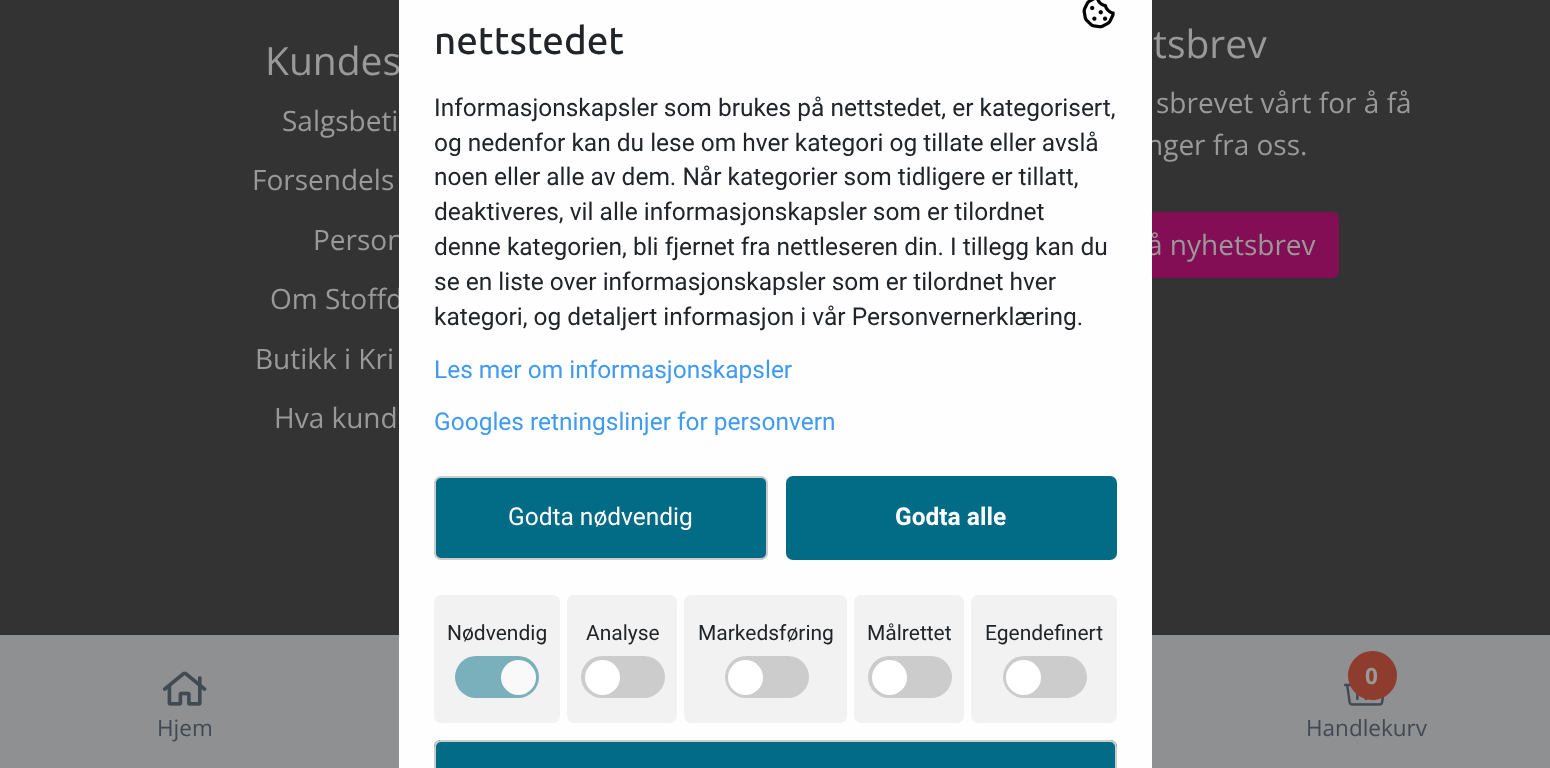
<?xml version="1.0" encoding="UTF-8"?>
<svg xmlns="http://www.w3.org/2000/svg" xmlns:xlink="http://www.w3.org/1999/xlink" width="1550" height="768">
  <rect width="100%" height="100%" fill="#333333" />
  <rect x="988" y="213" width="350" height="64" rx="6" fill="#830e55" stroke="#830e55" stroke-width="2" />
  <rect y="635" width="1550" height="133" fill="#8e9091" />
  <image x="163" y="671" width="44" height="35" xlink:href="image2.png" />
  <image x="1344" y="683" width="41" height="23" xlink:href="image3.png" />
  <circle cx="1372.5" cy="675.5" r="22.5" fill="#8e3c2d" stroke="#8e3c2d" stroke-width="4" />
  <text x="265" y="75" style="font-family: Open Sans; font-size: 39px; fill: #999999">Kundes</text>
  <text x="282" y="131" style="font-family: Open Sans; font-size: 28px; fill: #999999">Salgsbeti</text>
  <text x="252" y="190" style="font-family: Open Sans; font-size: 28px; fill: #999999">Forsendels</text>
  <text x="313" y="250" style="font-family: Open Sans; font-size: 28px; fill: #999999">Person</text>
  <text x="270" y="309" style="font-family: Open Sans; font-size: 28px; fill: #999999">Om Stoffd</text>
  <text x="255" y="369" style="font-family: Open Sans; font-size: 28px; fill: #999999">Butikk i Kri</text>
  <text x="274" y="428" style="font-family: Open Sans; font-size: 28px; fill: #999999">Hva kund</text>
  <text x="1153" y="58" style="font-family: Open Sans; font-size: 39px; fill: #999999">tsbrev</text>
  <text x="1156" y="113" style="font-family: Open Sans; font-size: 28px; fill: #999999">sbrevet vårt for å få</text>
  <text x="1146" y="155" style="font-family: Open Sans; font-size: 28px; fill: #999999">nger fra oss.</text>
  <text x="1147" y="255" style="font-family: Open Sans; font-size: 28px; fill: #999999">å nyhetsbrev</text>
  <path d="M 407 -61 h 737 c 4 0 8 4 8 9 v 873 c 0 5 -4 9 -8 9 h -737 c -5 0 -8 -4 -8 -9 v -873 c 0 -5 3 -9 8 -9 z" fill="#fefefe" />
  <rect x="971" y="595" width="146" height="128" rx="7" fill="#f2f2f2" />
  <rect x="1003" y="656" width="84" height="42" rx="21" fill="#cccccc" />
  <circle cx="1023.5" cy="677.5" r="17.5" fill="#ffffff" />
  <rect x="854" y="595" width="110" height="128" rx="7" fill="#f2f2f2" />
  <rect x="868" y="656" width="84" height="42" rx="21" fill="#cccccc" />
  <circle cx="889.5" cy="677.5" r="17.5" fill="#ffffff" />
  <rect x="684" y="595" width="163" height="128" rx="7" fill="#f2f2f2" />
  <rect x="725" y="656" width="84" height="42" rx="21" fill="#cccccc" />
  <circle cx="745.5" cy="677.5" r="17.5" fill="#ffffff" />
  <rect x="567" y="595" width="110" height="128" rx="7" fill="#f2f2f2" />
  <rect x="581" y="656" width="84" height="42" rx="21" fill="#cccccc" />
  <circle cx="602.5" cy="677.5" r="17.5" fill="#ffffff" />
  <rect x="434" y="595" width="126" height="128" rx="7" fill="#f2f2f2" />
  <rect x="455" y="656" width="84" height="42" rx="21" fill="#7aafbc" />
  <circle cx="518.5" cy="677.5" r="17.5" fill="#f9f9f9" />
  <path d="M 441 740 h 669 c 4 0 7 3 7 7 v 21 h -683 v -21 c 0 -4 3 -7 7 -7 z" fill="#026b85" />
  <rect x="435" y="741" width="681" height="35" rx="6" fill="none" stroke="#cccccc" stroke-width="2" />
  <text x="985" y="640" style="font-family: Roboto; font-size: 21px; fill: #212529">Egendefinert</text>
  <text x="867" y="640" style="font-family: Roboto; font-size: 21px; fill: #212529">Målrettet</text>
  <text x="698" y="640" style="font-family: Roboto; font-size: 21px; fill: #212529">Markedsføring</text>
  <text x="586" y="640" style="font-family: Roboto; font-size: 21px; fill: #212529">Analyse</text>
  <text x="447" y="640" style="font-family: Roboto; font-size: 21px; fill: #212529">Nødvendig</text>
  <rect x="786" y="476" width="331" height="84" rx="7" fill="#026b85" />
  <text x="895" y="525" style="font-family: Roboto; font-size: 24.5px; font-weight: bold; fill: #ffffff">Godta alle</text>
  <rect x="435" y="477" width="332" height="82" rx="6" fill="#026b85" stroke="#cccccc" stroke-width="2" />
  <text x="508" y="525" style="font-family: Roboto; font-size: 24.5px; fill: #ffffff">Godta nødvendig</text>
  <text x="434" y="430" style="font-family: Roboto; font-size: 24.5px; fill: #409aef">Googles retningslinjer for personvern</text>
  <text x="434" y="378" style="font-family: Roboto; font-size: 24.5px; fill: #409aef">Les mer om informasjonskapsler</text>
  <text x="434" y="325" style="font-family: Roboto; font-size: 24.5px; fill: #212529">kategori, og detaljert informasjon i vår Personvernerklæring.</text>
  <text x="434" y="290" style="font-family: Roboto; font-size: 24.5px; fill: #212529">se en liste over informasjonskapsler som er tilordnet hver</text>
  <text x="434" y="255" style="font-family: Roboto; font-size: 24.5px; fill: #212529">denne kategorien, bli fjernet fra nettleseren din. I tillegg kan du</text>
  <text x="434" y="220" style="font-family: Roboto; font-size: 24.5px; fill: #212529">deaktiveres, vil alle informasjonskapsler som er tilordnet</text>
  <text x="434" y="185" style="font-family: Roboto; font-size: 24.5px; fill: #212529">noen eller alle av dem. Når kategorier som tidligere er tillatt,</text>
  <text x="434" y="151" style="font-family: Roboto; font-size: 24.5px; fill: #212529">og nedenfor kan du lese om hver kategori og tillate eller avslå</text>
  <text x="434" y="116" style="font-family: Roboto; font-size: 24.5px; fill: #212529">Informasjonskapsler som brukes på nettstedet, er kategorisert,</text>
  <image x="1082" y="0" width="33" height="29" xlink:href="image1.png" />
  <text x="434" y="54" style="font-family: Ubuntu; font-size: 38.5px; font-weight: 500; fill: #212529">nettstedet</text>
  <text x="157" y="736" style="font-family: Open Sans; font-size: 22.5px; fill: #414952">Hjem</text>
  <text x="1365" y="684" style="font-family: Open Sans; font-size: 22.5px; font-weight: bold; fill: #999999">0</text>
  <text x="1306" y="736" style="font-family: Open Sans; font-size: 22.5px; fill: #414952">Handlekurv</text>
</svg>
